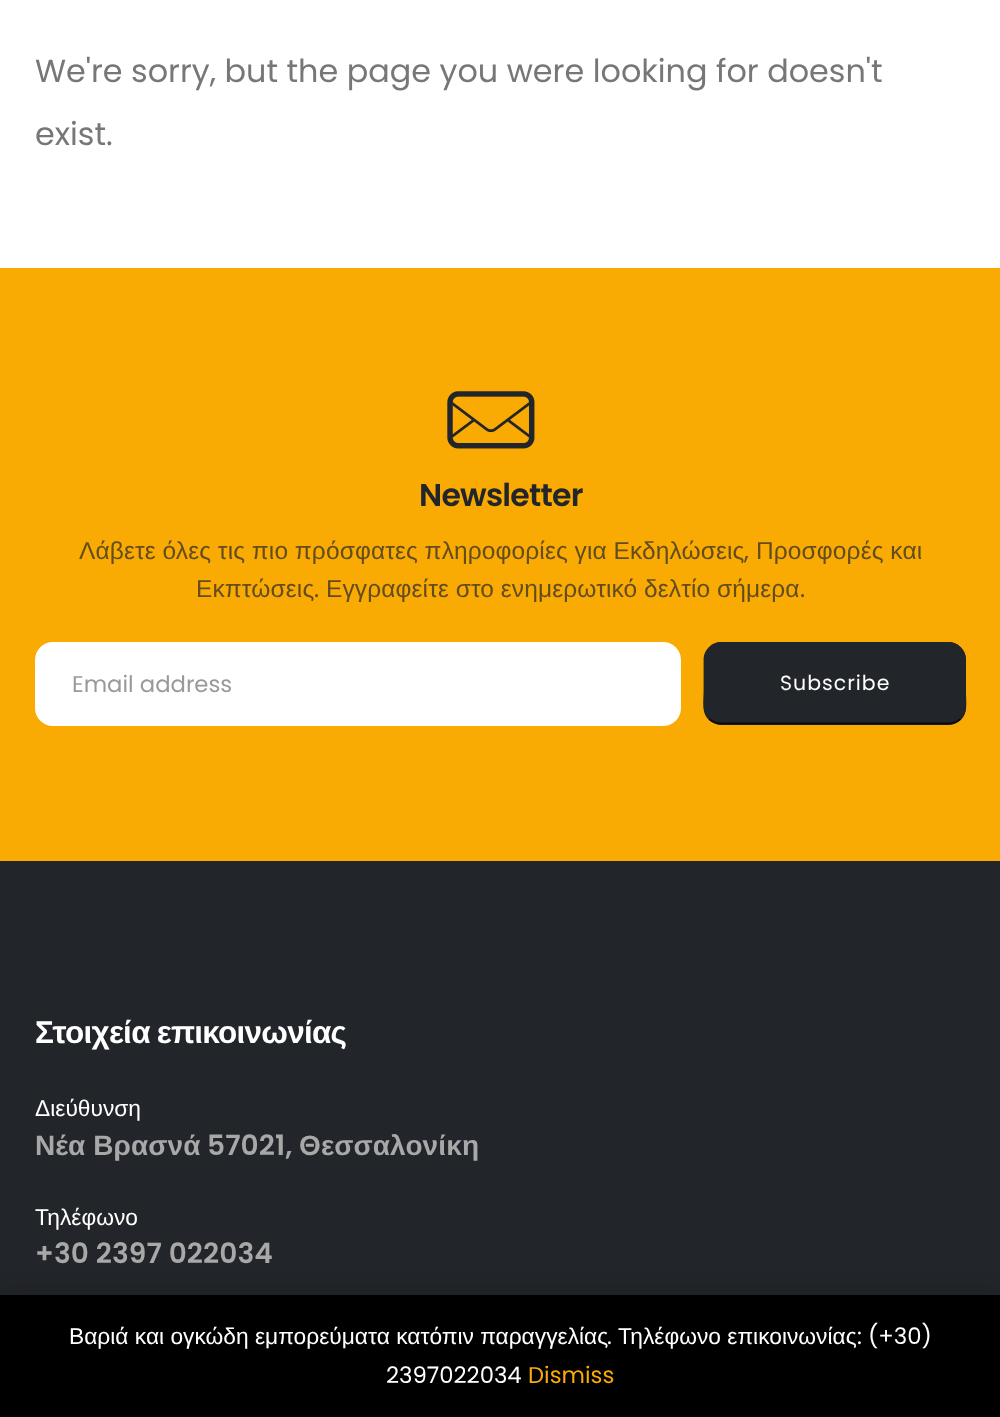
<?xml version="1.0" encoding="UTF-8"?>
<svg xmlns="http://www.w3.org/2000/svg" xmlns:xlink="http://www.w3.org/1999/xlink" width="1000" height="1417">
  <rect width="100%" height="100%" fill="#ffffff" />
  <rect y="268" width="1000" height="593" fill="#f9aa03" />
  <image x="447" y="391" width="88" height="58" xlink:href="image1.png" />
  <rect x="35" y="642" width="646" height="84" rx="18" fill="#ffffff" />
  <rect x="704" y="642" width="262" height="83" rx="18" fill="#222529" />
  <path d="M 960.5 719 c -3.5 3 -7.5 4.5 -12 4.5 h -227.5 c -4.5 0 -8.5 -1.5 -12 -4.5" fill="none" stroke="#0b0c0e" stroke-width="1.8" />
  <path d="M 709 719 c -7 -7.5 -4.5 -18.5 -4.5 -28 v -33 c 1 -8.5 8 -15 16.5 -15 h 227.5 c 8.5 0 15.5 6.5 16.5 15 v 33 c 0 9.5 2.5 20.5 -4.5 28" fill="none" stroke="#222529" stroke-width="1.8" />
  <rect y="861" width="1000" height="434" fill="#222529" />
  <rect y="1297" width="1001" height="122" fill="#000000" fill-opacity="0.2" filter="blur(11.5px)" />
  <rect y="1295" width="1000" height="122" fill="#000000" />
  <text x="35" y="82" style="font-family: Poppins; font-size: 31.85px; fill: #777777">We're sorry, but the page you were looking for doesn't</text>
  <text x="35" y="145" style="font-family: Poppins; font-size: 31.85px; fill: #777777">exist.</text>
  <text x="419" y="506" style="font-family: Poppins; font-size: 31.5px; font-weight: 600; letter-spacing: -0.75px; fill: #222529">Newsletter</text>
  <text x="79" y="559" word-spacing="-0.25" style="font-family: Liberation Sans; font-size: 24.5px; letter-spacing: 0.12px; fill: #634d1e">Λάβετε όλες τις πιο πρόσφατες πληροφορίες για Εκδηλώσεις</text>
  <text x="744" y="559" style="font-family: Poppins; font-size: 24.5px; letter-spacing: 0.12px; fill: #634d1e">,</text>
  <text x="756" y="559" word-spacing="-0.25" style="font-family: Liberation Sans; font-size: 24.5px; letter-spacing: 0.12px; fill: #634d1e">Προσφορές και</text>
  <text x="196" y="597" style="font-family: Liberation Sans; font-size: 24.5px; letter-spacing: 0.12px; fill: #634d1e">Εκπτώσεις</text>
  <text x="314" y="597" style="font-family: Poppins; font-size: 24.5px; letter-spacing: 0.12px; fill: #634d1e">.</text>
  <text x="326" y="597" word-spacing="-0.25" style="font-family: Liberation Sans; font-size: 24.5px; letter-spacing: 0.12px; fill: #634d1e">Εγγραφείτε στο ενημερωτικό δελτίο σήμερα</text>
  <text x="800" y="597" style="font-family: Poppins; font-size: 24.5px; letter-spacing: 0.12px; fill: #634d1e">.</text>
  <text x="72" y="692" style="font-family: Poppins; font-size: 22.75px; fill: #999999">Email address</text>
  <text x="780" y="690" style="font-family: Poppins; font-size: 20.5px; letter-spacing: 1px; fill: #ffffff">Subscribe</text>
  <text x="35" y="1043" word-spacing="-1" style="font-family: Liberation Sans; font-size: 31.5px; font-weight: bold; letter-spacing: -0.75px; fill: #ffffff">Στοιχεία επικοινωνίας</text>
  <text x="35" y="1116" style="font-family: Liberation Sans; font-size: 22.75px; fill: #ffffff">Διεύθυνση</text>
  <text x="35" y="1155" style="font-family: Liberation Sans; font-size: 28px; font-weight: bold; letter-spacing: 0.1px; fill: #a8a8a8">Νέα Βρασνά</text>
  <text x="207" y="1155" style="font-family: Poppins; font-size: 28px; font-weight: 600; letter-spacing: 0.1px; fill: #a8a8a8">57021,</text>
  <text x="299" y="1155" style="font-family: Liberation Sans; font-size: 28px; font-weight: bold; letter-spacing: 0.1px; fill: #a8a8a8">Θεσσαλονίκη</text>
  <text x="35" y="1225" style="font-family: Liberation Sans; font-size: 22.75px; fill: #ffffff">Τηλέφωνο</text>
  <text x="35" y="1263" style="font-family: Poppins; font-size: 28px; font-weight: 600; letter-spacing: 0.1px; fill: #a8a8a8">+30 2397 022034</text>
  <text x="69" y="1344" style="font-family: Liberation Sans; font-size: 22.75px; fill: #ffffff">Βαριά και ογκώδη εμπορεύματα κατόπιν παραγγελίας</text>
  <text x="607" y="1344" style="font-family: Poppins; font-size: 22.75px; fill: #ffffff">.</text>
  <text x="618" y="1344" style="font-family: Liberation Sans; font-size: 22.75px; fill: #ffffff">Τηλέφωνο επικοινωνίας</text>
  <text x="857" y="1344" style="font-family: Poppins; font-size: 22.75px; fill: #ffffff">: (+30)</text>
  <text x="386" y="1383" style="font-family: Poppins; font-size: 22.75px; fill: #ffffff">2397022034</text>
  <text x="528" y="1383" style="font-family: Poppins; font-size: 22.75px; fill: #f9aa03">Dismiss</text>
</svg>
